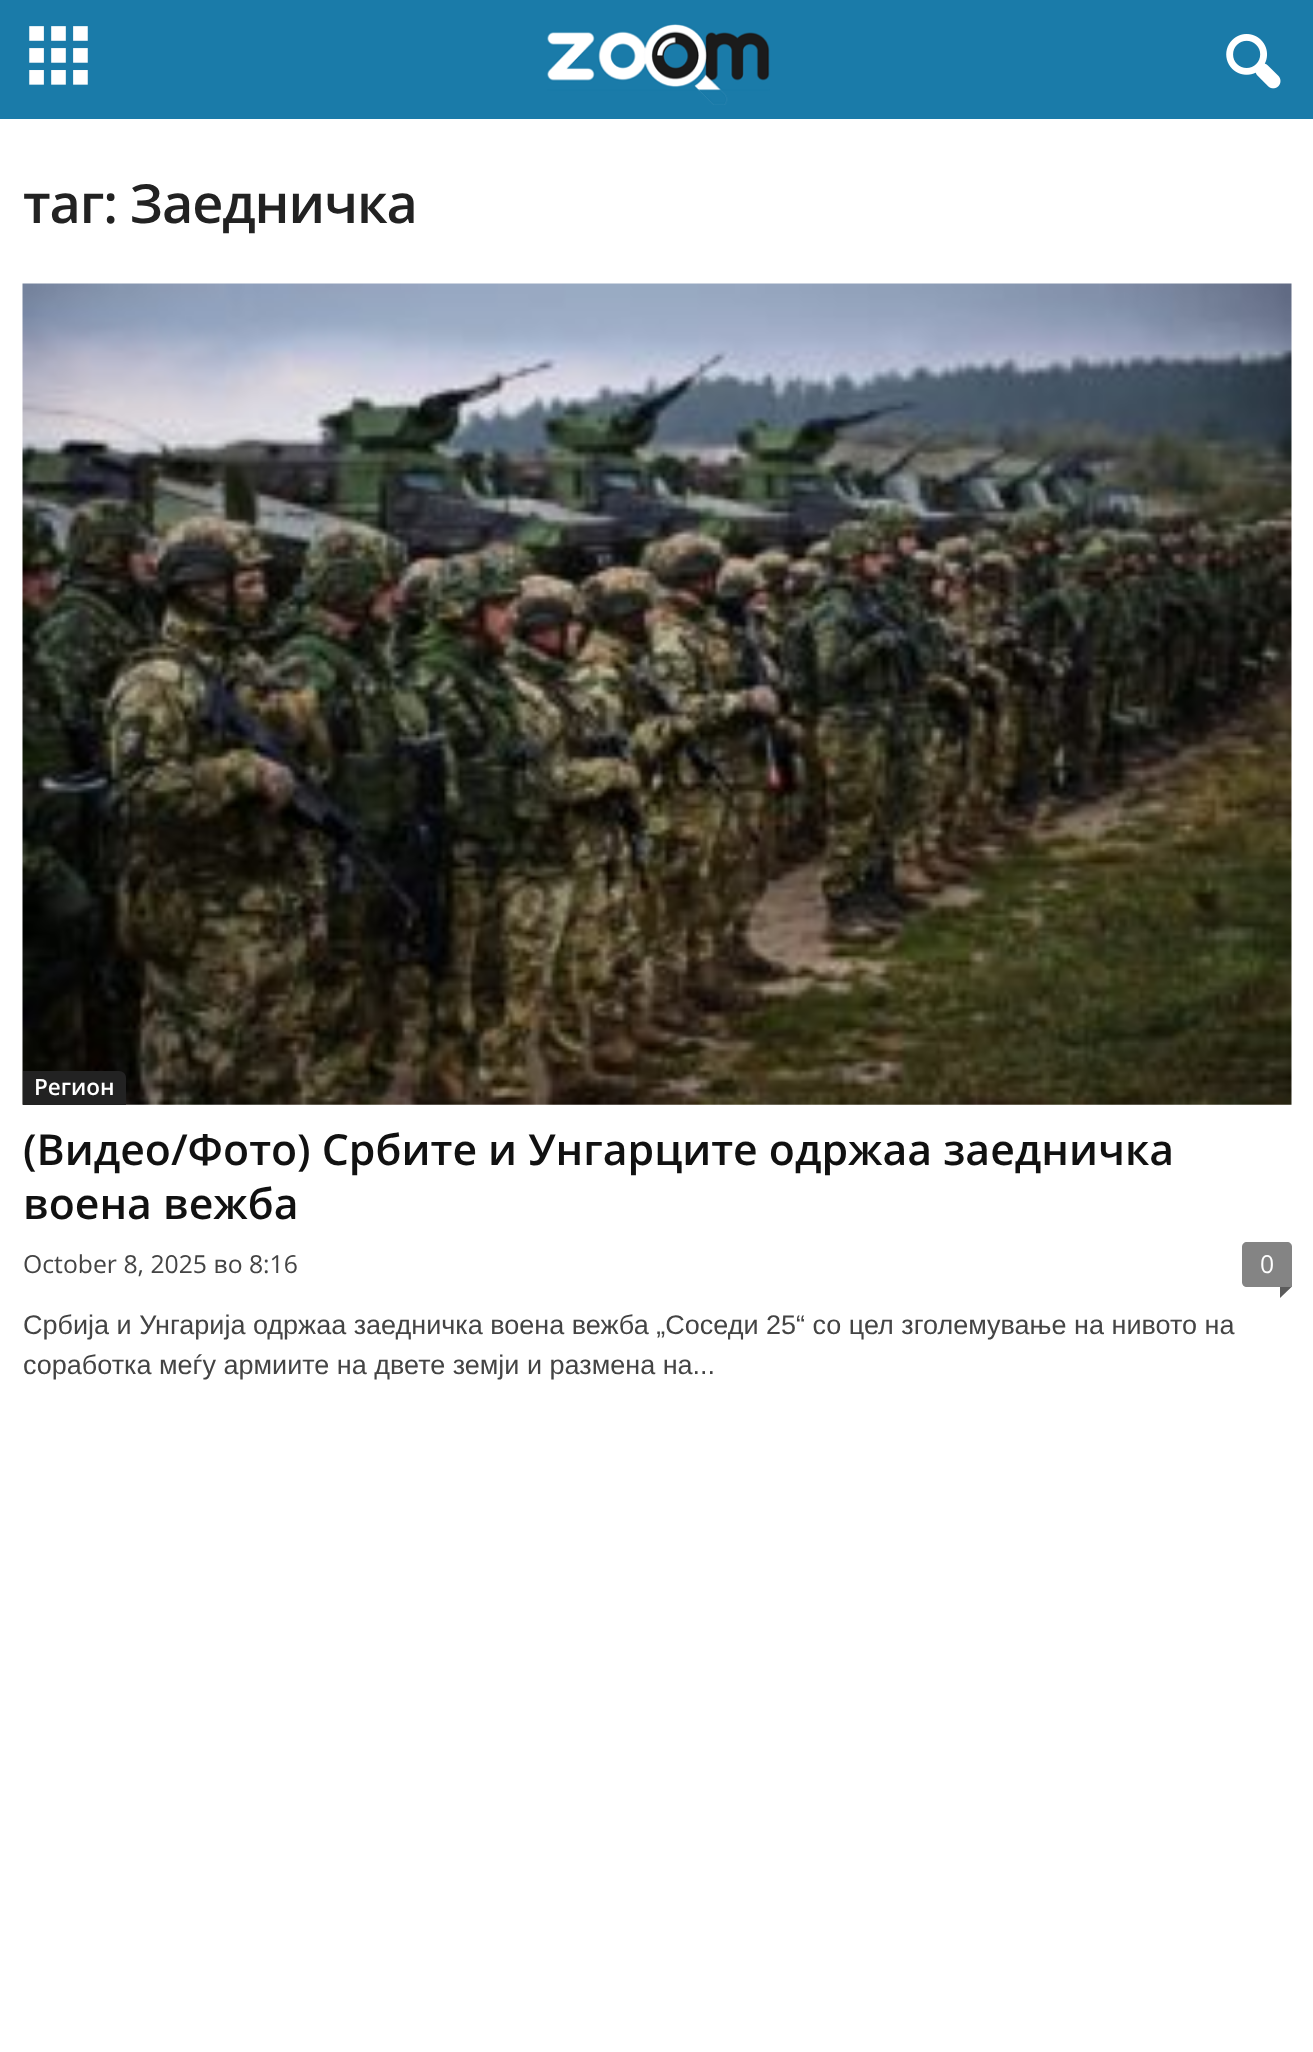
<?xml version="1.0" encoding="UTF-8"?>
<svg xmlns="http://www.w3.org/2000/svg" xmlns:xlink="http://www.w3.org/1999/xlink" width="1313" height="2052">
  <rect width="100%" height="100%" fill="#ffffff" />
  <rect width="1313" height="119" fill="#1a7ba9" />
  <image x="29" y="26" width="59" height="59" xlink:href="image1.png" />
  <image x="547" y="24" width="223" height="81" xlink:href="image2.png" />
  <image x="1226" y="34" width="55" height="55" xlink:href="image3.png" />
  <image x="22" y="283" width="1270" height="822" xlink:href="image4.png" />
  <path d="M 23 1071 h 96 c 4 0 7 3 7 7 v 27 h -103 z" fill="#222222" />
  <path d="M 1247 1242 h 40 c 3 0 5 2 5 5 v 40 h -45 c -3 0 -5 -2 -5 -5 v -35 c 0 -3 2 -5 5 -5 z" fill="#848484" />
  <path d="M 1280 1287 h 11.5 l -11.5 11 z" fill="#5b5b5b" />
  <text x="23" y="223" style="font-family: Open Sans; font-size: 54px; font-weight: 600; letter-spacing: -1.1px; fill: #222222">таг: Заедничка</text>
  <text x="34" y="1095" style="font-family: Open Sans; font-size: 22.5px; font-weight: 600; fill: #ffffff">Регион</text>
  <text x="23" y="1165" style="font-family: Open Sans; font-size: 42.75px; font-weight: 600; fill: #111111">(Видео/Фото) Србите и Унгарците одржаа заедничка</text>
  <text x="23" y="1219" style="font-family: Open Sans; font-size: 42.75px; font-weight: 600; fill: #111111">воена вежба</text>
  <text x="23" y="1273" style="font-family: Open Sans; font-size: 24.75px; fill: #444444">October 8, 2025 во 8:16</text>
  <text x="1260" y="1273" style="font-family: Open Sans; font-size: 24.75px; fill: #ffffff">0</text>
  <text x="23" y="1334" style="font-family: Liberation Sans; font-size: 27px; fill: #444444">Србија и Унгарија одржаа заедничка воена вежба „Соседи 25“ со цел зголемување на нивото на</text>
  <text x="23" y="1374" style="font-family: Liberation Sans; font-size: 27px; fill: #444444">соработка меѓу армиите на двете земји и размена на...</text>
</svg>
